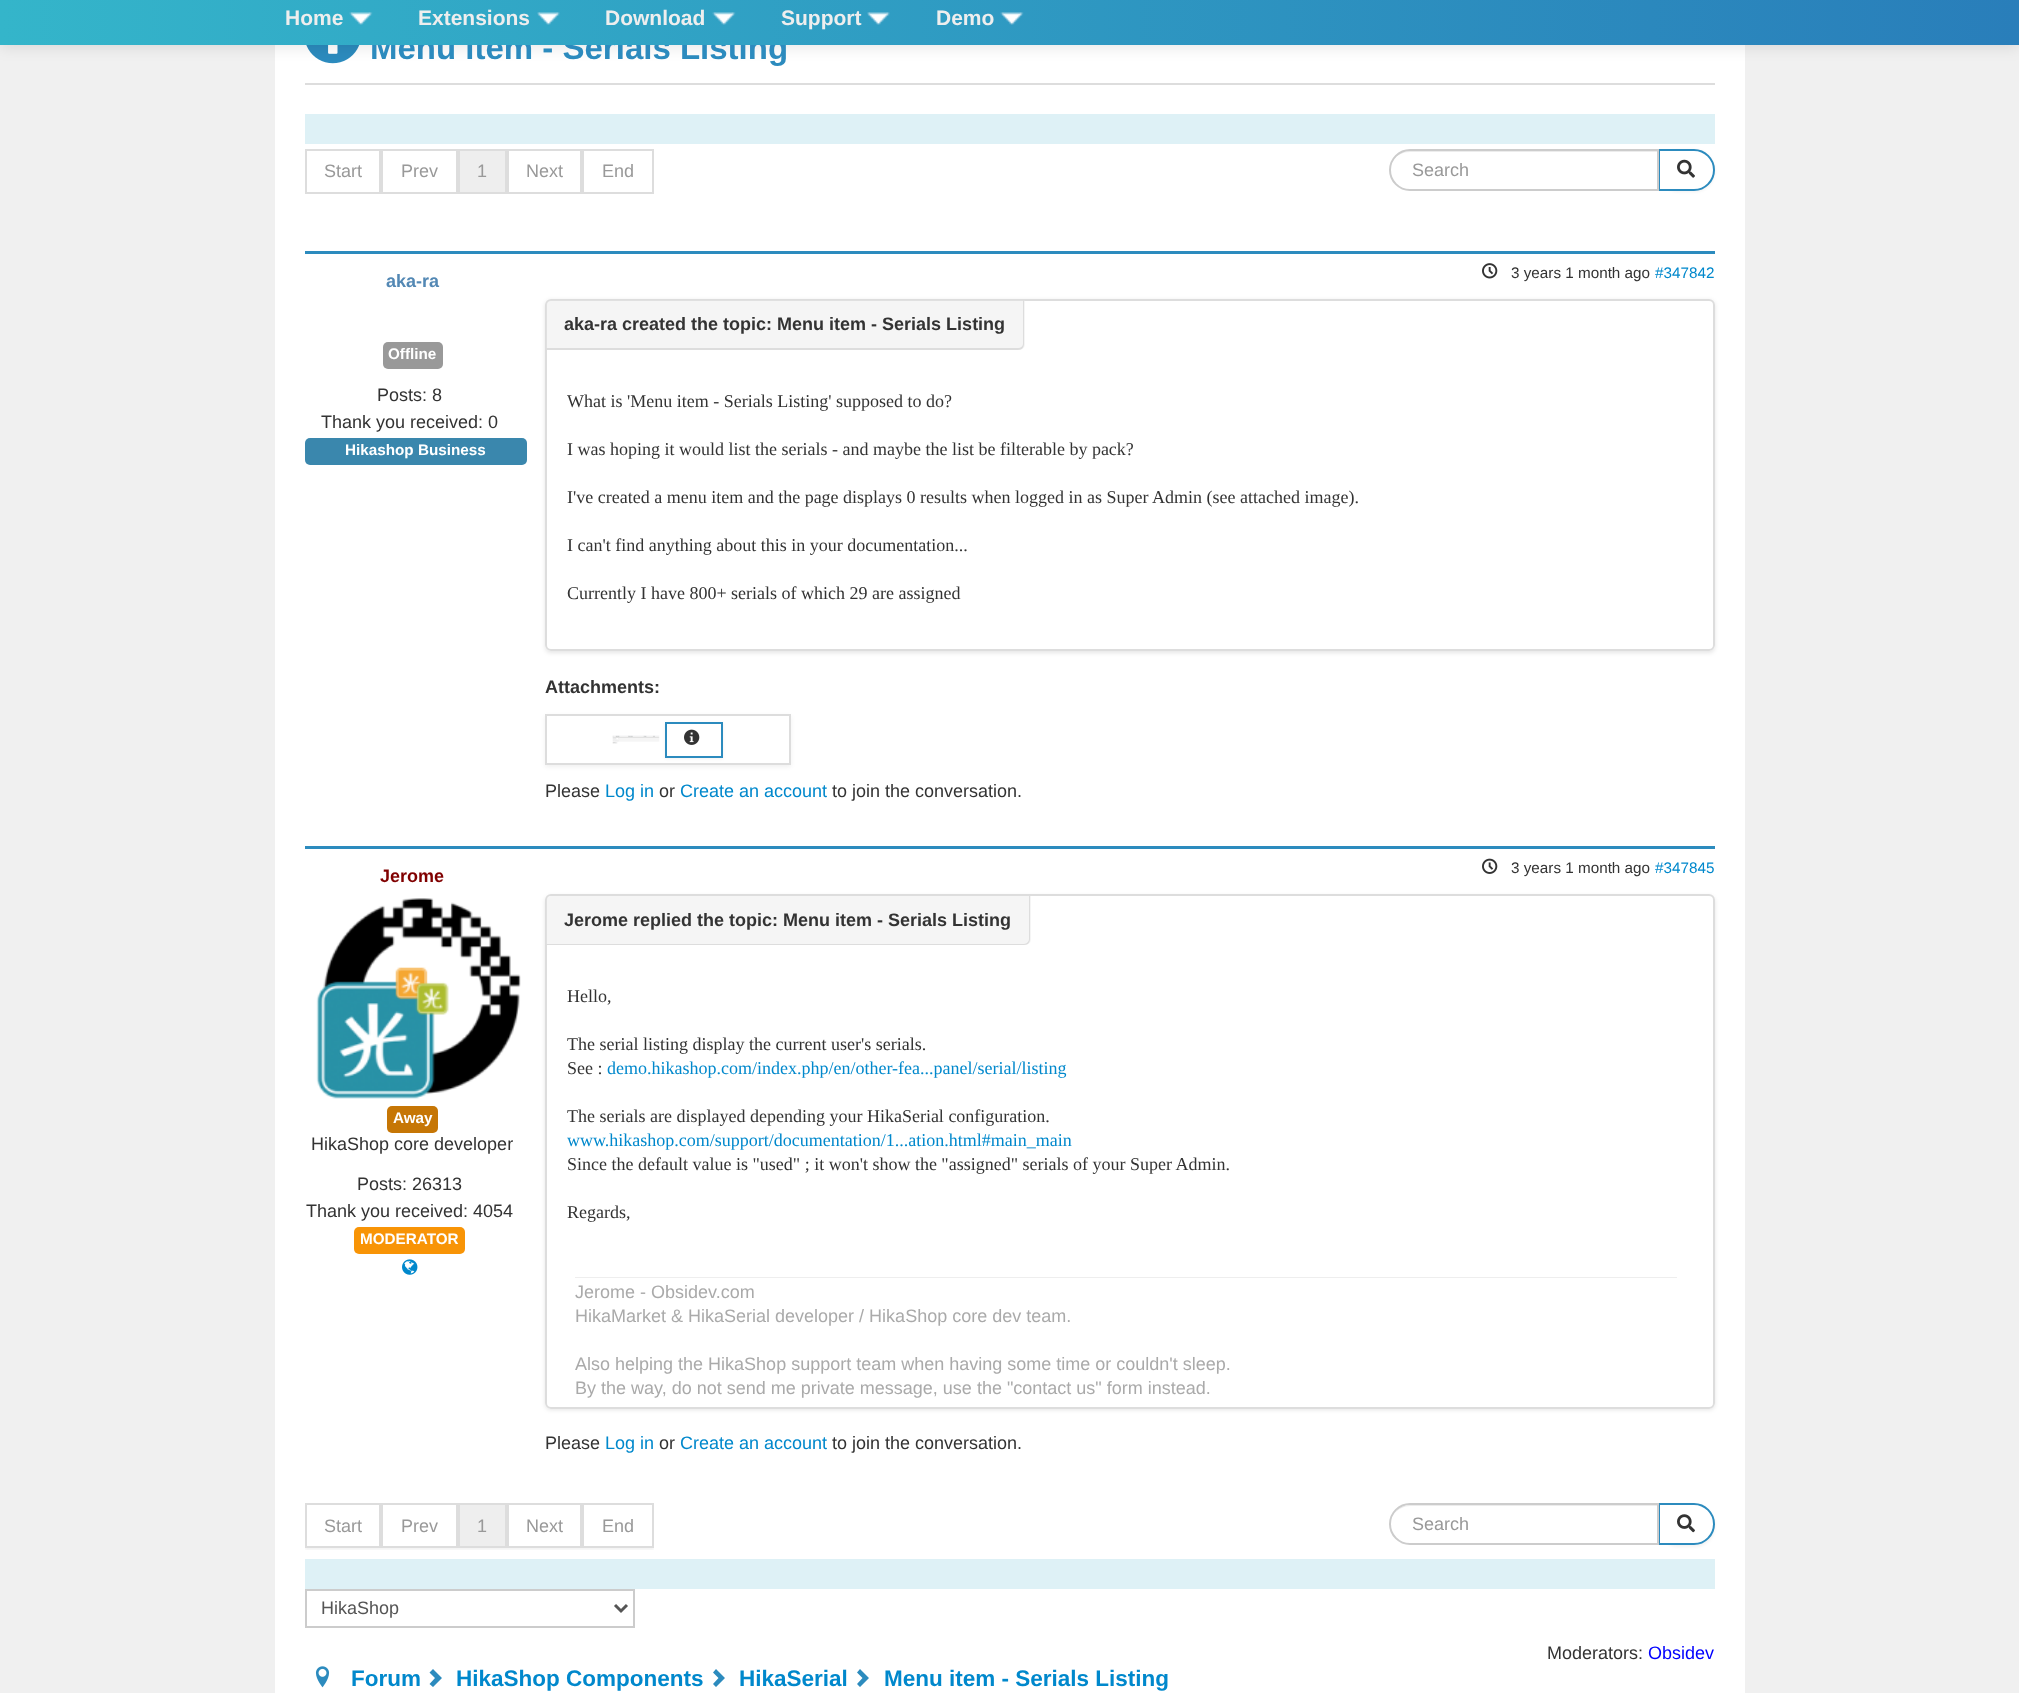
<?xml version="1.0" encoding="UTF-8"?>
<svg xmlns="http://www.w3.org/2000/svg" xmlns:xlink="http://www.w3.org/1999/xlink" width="2019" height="1693">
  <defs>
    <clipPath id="clip1"><path d="M 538 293 h 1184 v 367 h -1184 z m 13 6 h 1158 c 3.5 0 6 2.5 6 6 v 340 c 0 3.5 -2.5 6 -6 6 h -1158 c -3.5 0 -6 -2.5 -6 -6 v -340 c 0 -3.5 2.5 -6 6 -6 z" clip-rule="evenodd" /></clipPath>
    <clipPath id="clip2"><path d="M 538 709 h 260 v 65 h -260 z m 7 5 h 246 v 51 h -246 z" clip-rule="evenodd" /></clipPath>
    <clipPath id="clip3"><path d="M 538 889 h 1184 v 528 h -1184 z m 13 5 h 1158 c 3.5 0 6 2.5 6 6 v 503 c 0 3.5 -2.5 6 -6 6 h -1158 c -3.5 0 -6 -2.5 -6 -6 v -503 c 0 -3.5 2.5 -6 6 -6 z" clip-rule="evenodd" /></clipPath>
    <clipPath id="clip4"><rect x="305" y="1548" width="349" height="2" /></clipPath>
    <linearGradient id="g1" gradientUnits="userSpaceOnUse" x1="0" y1="23" x2="2019" y2="22"><stop offset="0" stop-color="#34b5ca" /><stop offset="1" stop-color="#297eba" /></linearGradient>
  </defs>
  <rect width="100%" height="100%" fill="#f0f0f0" />
  <rect x="275" y="45" width="1470" height="1648" fill="#ffffff" />
  <image x="306" y="45" width="54" height="19" xlink:href="image6.png" />
  <rect y="2" width="2019" height="45" fill="#000000" fill-opacity="0.1" filter="blur(7.5px)" />
  <rect x="305" y="83" width="1410" height="2" fill="#dddddd" />
  <rect x="305" y="114" width="1410" height="30" fill="#def1f6" />
  <rect x="306" y="150" width="74" height="43" fill="none" stroke="#dddddd" stroke-width="2" />
  <rect x="382" y="150" width="75" height="43" fill="none" stroke="#dddddd" stroke-width="2" />
  <rect x="459" y="150" width="47" height="43" fill="#eeeeee" stroke="#dddddd" stroke-width="2" />
  <rect x="508" y="150" width="73" height="43" fill="none" stroke="#dddddd" stroke-width="2" />
  <rect x="583" y="150" width="70" height="43" fill="none" stroke="#dddddd" stroke-width="2" />
  <rect x="1658" y="150" width="57" height="42" rx="21" fill="#000000" fill-opacity="0.05" filter="blur(1.5px)" />
  <path d="M 1659 150 h 35 c 11 0 20 9 20 20 c 0 11 -9 20 -20 20 h -35 z" fill="#ffffff" stroke="#2c8bbe" stroke-width="2" />
  <path d="M 1410 149 h 249 v 42 h -249 c -11.5 0 -21 -9.5 -21 -21 c 0 -11.5 9.5 -21 21 -21 z" fill="#ffffff" />
  <path d="M 1410 152 h 248 v -2 h -248 c -7 0 -14 4 -17 10 c 4 -5 10 -8 17 -8 z" fill="#ececec" />
  <path d="M 1410 150 h 248 v 40 h -248 c -11 0 -20 -9 -20 -20 c 0 -11 9 -20 20 -20 z" fill="none" stroke="#cccccc" stroke-width="2" />
  <image x="1677" y="159" width="18" height="19" xlink:href="image7.png" />
  <rect x="305" y="251" width="1410" height="3" fill="#2c8bbe" />
  <rect x="383" y="342" width="60" height="27" rx="5" fill="#999999" />
  <rect x="305" y="438" width="222" height="27" rx="5" fill="#3a87ad" />
  <image x="1482" y="263" width="16" height="16" xlink:href="image8.png" />
  <g clip-path="url(#clip1)">
    <rect x="545" y="300" width="1170" height="353" rx="6" fill="#000000" fill-opacity="0.1" filter="blur(2px)" />
  </g>
  <rect x="546" y="300" width="1168" height="350" rx="5" fill="none" stroke="#dddddd" stroke-width="2" />
  <path d="M 552 300 h 473 v 44 c 0 3.5 -2.5 6 -6 6 h -473 v -44 c 0 -3.5 2.5 -6 6 -6 z" fill="#e5e5e5" fill-opacity="0.4" />
  <path d="M 552 300 h 472 v 44 c 0 3 -2 6 -6 6 h -472 v -44 c 0 -3 3 -6 6 -6 z m 0 0 h 471 v 44 c 0 2 -2 4 -5 4 h -472 v -42 c 0 -3 3 -6 6 -6 z" fill="#dddddd" fill-rule="evenodd" />
  <g clip-path="url(#clip2)">
    <rect x="545" y="716" width="246" height="51" fill="#000000" fill-opacity="0.06" filter="blur(2px)" />
  </g>
  <rect x="546" y="715" width="244" height="49" fill="none" stroke="#dddddd" stroke-width="2" />
  <image x="612" y="735" width="48" height="9" xlink:href="image9.png" />
  <rect x="665" y="723" width="58" height="36" fill="#000000" fill-opacity="0.05" filter="blur(1.5px)" />
  <rect x="666" y="723" width="56" height="34" fill="#ffffff" stroke="#2c8bbe" stroke-width="2" />
  <image x="684" y="729" width="16" height="16" xlink:href="image10.png" />
  <rect x="305" y="846" width="1410" height="3" fill="#2c8bbe" />
  <image x="316" y="898" width="205" height="201" xlink:href="image11.png" />
  <rect x="387" y="1106" width="51" height="27" rx="5" fill="#c67605" />
  <rect x="354" y="1227" width="111" height="27" rx="5" fill="#f89406" />
  <image x="402" y="1259" width="16" height="16" xlink:href="image12.png" />
  <image x="1482" y="858" width="16" height="16" xlink:href="image13.png" />
  <g clip-path="url(#clip3)">
    <rect x="545" y="896" width="1170" height="514" rx="6" fill="#000000" fill-opacity="0.1" filter="blur(2px)" />
  </g>
  <rect x="546" y="895" width="1168" height="513" rx="5" fill="none" stroke="#dddddd" stroke-width="2" />
  <path d="M 552 896 h 479 v 43 c 0 3.5 -2.5 6 -6 6 h -479 v -43 c 0 -3.5 2.5 -6 6 -6 z" fill="#e5e5e5" fill-opacity="0.4" />
  <path d="M 552 896 h 478 v 43 c 0 3 -2 6 -6 6 h -478 v -43 c 0 -4 3 -6 6 -6 z m 0 0 h 477 v 43 c 0 2 -2 5 -5 5 h -478 v -42 c 0 -4 3 -6 6 -6 z" fill="#dddddd" fill-rule="evenodd" />
  <rect x="575" y="1277" width="1102" height="1" fill="#eeeeee" />
  <g clip-path="url(#clip4)">
    <rect x="305" y="1505" width="349" height="45" fill="#000000" fill-opacity="0.05" filter="blur(1.5px)" />
  </g>
  <rect x="306" y="1504" width="74" height="43" fill="none" stroke="#dddddd" stroke-width="2" />
  <rect x="382" y="1504" width="75" height="43" fill="none" stroke="#dddddd" stroke-width="2" />
  <rect x="459" y="1504" width="47" height="43" fill="#eeeeee" stroke="#dddddd" stroke-width="2" />
  <rect x="508" y="1504" width="73" height="43" fill="none" stroke="#dddddd" stroke-width="2" />
  <rect x="583" y="1504" width="70" height="43" fill="none" stroke="#dddddd" stroke-width="2" />
  <rect x="1658" y="1505" width="57" height="42" rx="21" fill="#000000" fill-opacity="0.05" filter="blur(1.5px)" />
  <path d="M 1659 1504 h 35 c 11 0 20 9 20 20 c 0 11 -9 20 -20 20 h -35 z" fill="#ffffff" stroke="#2c8bbe" stroke-width="2" />
  <path d="M 1410 1503 h 249 v 42 h -249 c -11.5 0 -21 -9.5 -21 -21 c 0 -11.5 9.5 -21 21 -21 z" fill="#ffffff" />
  <path d="M 1410 1506 h 248 v -1 h -248 c -6 0 -12 3 -16 9 c 4 -5 10 -8 16 -8 z" fill="#ececec" />
  <path d="M 1410 1504 h 248 v 40 h -248 c -11 0 -20 -9 -20 -20 c 0 -11 9 -20 20 -20 z" fill="none" stroke="#cccccc" stroke-width="2" />
  <image x="1677" y="1514" width="18" height="19" xlink:href="image14.png" />
  <rect x="305" y="1559" width="1410" height="30" fill="#def1f6" />
  <rect x="306" y="1590" width="328" height="37" fill="none" stroke="#cccccc" stroke-width="2" />
  <path d="M 615 1605 l 6 6 l 6 -6" fill="none" stroke="#555555" stroke-width="3" />
  <image x="315" y="1666" width="15" height="22" xlink:href="image15.png" />
  <path d="M 433 1669 l 9 9 l -9 9 l -3.5 -3 l 5.5 -6 l -5.5 -5.5 z" fill="#2c8bbe" />
  <path d="M 716 1669 l 9 9 l -9 9 l -3 -3 l 5.5 -6 l -5.5 -5.5 z" fill="#2c8bbe" />
  <path d="M 860 1669 l 9 9 l -9 9 l -3 -3 l 5.5 -6 l -5.5 -5.5 z" fill="#2c8bbe" />
  <text x="370" y="59" style="font-family: Liberation Sans; font-size: 33px; font-weight: bold; fill: #2c8bbe">Menu item - Serials Listing</text>
  <rect width="2019" height="45" fill="url(#g1)" />
  <text x="936" y="25" style="font-family: Liberation Sans; font-size: 21px; font-weight: bold; fill: #eeeeee">Demo</text>
  <image x="1000" y="12" width="24" height="13" xlink:href="image5.png" />
  <text x="781" y="25" style="font-family: Liberation Sans; font-size: 21px; font-weight: bold; fill: #eeeeee">Support</text>
  <image x="867" y="12" width="23" height="13" xlink:href="image4.png" />
  <text x="605" y="25" style="font-family: Liberation Sans; font-size: 21px; font-weight: bold; fill: #eeeeee">Download</text>
  <image x="712" y="12" width="24" height="13" xlink:href="image3.png" />
  <text x="418" y="25" style="font-family: Liberation Sans; font-size: 21px; font-weight: bold; fill: #eeeeee">Extensions</text>
  <image x="537" y="12" width="23" height="13" xlink:href="image2.png" />
  <text x="285" y="25" style="font-family: Liberation Sans; font-size: 21px; font-weight: bold; fill: #eeeeee">Home</text>
  <image x="349" y="12" width="24" height="13" xlink:href="image1.png" />
  <text x="324" y="177" style="font-family: Liberation Sans; font-size: 18px; fill: #999999">Start</text>
  <text x="401" y="177" style="font-family: Liberation Sans; font-size: 18px; fill: #999999">Prev</text>
  <text x="477" y="177" style="font-family: Liberation Sans; font-size: 18px; fill: #999999">1</text>
  <text x="526" y="177" style="font-family: Liberation Sans; font-size: 18px; fill: #999999">Next</text>
  <text x="602" y="177" style="font-family: Liberation Sans; font-size: 18px; fill: #999999">End</text>
  <text x="1412" y="176" style="font-family: Liberation Sans; font-size: 18px; fill: #999999">Search</text>
  <text x="386" y="287" style="font-family: Liberation Sans; font-size: 18px; font-weight: bold; fill: #5388b4">aka-ra</text>
  <text x="388" y="359" style="font-family: Liberation Sans; font-size: 15.25px; font-weight: bold; fill: #ffffff">Offline</text>
  <text x="377" y="401" style="font-family: Liberation Sans; font-size: 18px; fill: #333333">Posts: 8</text>
  <text x="321" y="428" style="font-family: Liberation Sans; font-size: 18px; fill: #333333">Thank you received: 0</text>
  <text x="345" y="455" style="font-family: Liberation Sans; font-size: 15.25px; font-weight: bold; fill: #ffffff">Hikashop Business</text>
  <text x="1511" y="278" style="font-family: Liberation Sans; font-size: 15.25px; fill: #333333">3 years 1 month ago</text>
  <text x="1655" y="278" style="font-family: Liberation Sans; font-size: 15.25px; fill: #0088cc">#347842</text>
  <text x="564" y="330" style="font-family: Liberation Sans; font-size: 18px; font-weight: bold; fill: #333333">aka-ra created the topic: Menu item - Serials Listing</text>
  <text x="567" y="407" style="font-family: Liberation Serif; font-size: 18px; fill: #333333">What is 'Menu item - Serials Listing' supposed to do?</text>
  <text x="567" y="455" style="font-family: Liberation Serif; font-size: 18px; fill: #333333">I was hoping it would list the serials - and maybe the list be filterable by pack?</text>
  <text x="567" y="503" style="font-family: Liberation Serif; font-size: 18px; fill: #333333">I've created a menu item and the page displays 0 results when logged in as Super Admin (see attached image).</text>
  <text x="567" y="551" style="font-family: Liberation Serif; font-size: 18px; fill: #333333">I can't find anything about this in your documentation...</text>
  <text x="567" y="599" style="font-family: Liberation Serif; font-size: 18px; fill: #333333">Currently I have 800+ serials of which 29 are assigned</text>
  <text x="545" y="693" style="font-family: Liberation Sans; font-size: 18px; font-weight: bold; fill: #333333">Attachments:</text>
  <text x="545" y="797" style="font-family: Liberation Sans; font-size: 18px; fill: #333333">Please</text>
  <text x="605" y="797" style="font-family: Liberation Sans; font-size: 18px; fill: #0088cc">Log in</text>
  <text x="659" y="797" style="font-family: Liberation Sans; font-size: 18px; fill: #333333">or</text>
  <text x="680" y="797" style="font-family: Liberation Sans; font-size: 18px; fill: #0088cc">Create an account</text>
  <text x="832" y="797" style="font-family: Liberation Sans; font-size: 18px; fill: #333333">to join the conversation.</text>
  <text x="380" y="882" style="font-family: Liberation Sans; font-size: 18px; font-weight: bold; fill: #800000">Jerome</text>
  <text x="393" y="1123" style="font-family: Liberation Sans; font-size: 15.25px; font-weight: bold; fill: #ffffff">Away</text>
  <text x="311" y="1150" style="font-family: Liberation Sans; font-size: 18px; fill: #333333">HikaShop core developer</text>
  <text x="357" y="1190" style="font-family: Liberation Sans; font-size: 18px; fill: #333333">Posts: 26313</text>
  <text x="306" y="1217" style="font-family: Liberation Sans; font-size: 18px; fill: #333333">Thank you received: 4054</text>
  <text x="360" y="1244" style="font-family: Liberation Sans; font-size: 15.25px; font-weight: bold; fill: #ffffff">MODERATOR</text>
  <text x="1511" y="873" style="font-family: Liberation Sans; font-size: 15.25px; fill: #333333">3 years 1 month ago</text>
  <text x="1655" y="873" style="font-family: Liberation Sans; font-size: 15.25px; fill: #0088cc">#347845</text>
  <text x="564" y="926" style="font-family: Liberation Sans; font-size: 18px; font-weight: bold; fill: #333333">Jerome replied the topic: Menu item - Serials Listing</text>
  <text x="567" y="1002" style="font-family: Liberation Serif; font-size: 18px; fill: #333333">Hello,</text>
  <text x="567" y="1050" style="font-family: Liberation Serif; font-size: 18px; fill: #333333">The serial listing display the current user's serials.</text>
  <text x="567" y="1074" style="font-family: Liberation Serif; font-size: 18px; fill: #333333">See :</text>
  <text x="607" y="1074" style="font-family: Liberation Serif; font-size: 18px; fill: #0088cc">demo.hikashop.com/index.php/en/other-fea...panel/serial/listing</text>
  <text x="567" y="1122" style="font-family: Liberation Serif; font-size: 18px; fill: #333333">The serials are displayed depending your HikaSerial configuration.</text>
  <text x="567" y="1146" style="font-family: Liberation Serif; font-size: 18px; fill: #0088cc">www.hikashop.com/support/documentation/1...ation.html#main_main</text>
  <text x="567" y="1170" style="font-family: Liberation Serif; font-size: 18px; fill: #333333">Since the default value is "used" ; it won't show the "assigned" serials of your Super Admin.</text>
  <text x="567" y="1218" style="font-family: Liberation Serif; font-size: 18px; fill: #333333">Regards,</text>
  <text x="575" y="1298" style="font-family: Liberation Sans; font-size: 18px; fill: #aaaaaa">Jerome - Obsidev.com</text>
  <text x="575" y="1322" style="font-family: Liberation Sans; font-size: 18px; fill: #aaaaaa">HikaMarket &amp; HikaSerial developer / HikaShop core dev team.</text>
  <text x="575" y="1370" style="font-family: Liberation Sans; font-size: 18px; fill: #aaaaaa">Also helping the HikaShop support team when having some time or couldn't sleep.</text>
  <text x="575" y="1394" style="font-family: Liberation Sans; font-size: 18px; fill: #aaaaaa">By the way, do not send me private message, use the "contact us" form instead.</text>
  <text x="545" y="1449" style="font-family: Liberation Sans; font-size: 18px; fill: #333333">Please</text>
  <text x="605" y="1449" style="font-family: Liberation Sans; font-size: 18px; fill: #0088cc">Log in</text>
  <text x="659" y="1449" style="font-family: Liberation Sans; font-size: 18px; fill: #333333">or</text>
  <text x="680" y="1449" style="font-family: Liberation Sans; font-size: 18px; fill: #0088cc">Create an account</text>
  <text x="832" y="1449" style="font-family: Liberation Sans; font-size: 18px; fill: #333333">to join the conversation.</text>
  <text x="324" y="1532" style="font-family: Liberation Sans; font-size: 18px; fill: #999999">Start</text>
  <text x="401" y="1532" style="font-family: Liberation Sans; font-size: 18px; fill: #999999">Prev</text>
  <text x="477" y="1532" style="font-family: Liberation Sans; font-size: 18px; fill: #999999">1</text>
  <text x="526" y="1532" style="font-family: Liberation Sans; font-size: 18px; fill: #999999">Next</text>
  <text x="602" y="1532" style="font-family: Liberation Sans; font-size: 18px; fill: #999999">End</text>
  <text x="1412" y="1530" style="font-family: Liberation Sans; font-size: 18px; fill: #999999">Search</text>
  <text x="321" y="1614" style="font-family: Liberation Sans; font-size: 18px; fill: #555555">HikaShop</text>
  <text x="1547" y="1659" style="font-family: Liberation Sans; font-size: 18px; fill: #333333">Moderators:</text>
  <text x="1648" y="1659" style="font-family: Liberation Sans; font-size: 18px; fill: #0000ff">Obsidev</text>
  <text x="351" y="1686" style="font-family: Liberation Sans; font-size: 22.5px; font-weight: bold; fill: #0088cc">Forum</text>
  <text x="456" y="1686" style="font-family: Liberation Sans; font-size: 22.5px; font-weight: bold; fill: #0088cc">HikaShop Components</text>
  <text x="739" y="1686" style="font-family: Liberation Sans; font-size: 22.5px; font-weight: bold; fill: #0088cc">HikaSerial</text>
  <text x="884" y="1686" style="font-family: Liberation Sans; font-size: 22.5px; font-weight: bold; fill: #0088cc">Menu item - Serials Listing</text>
</svg>
